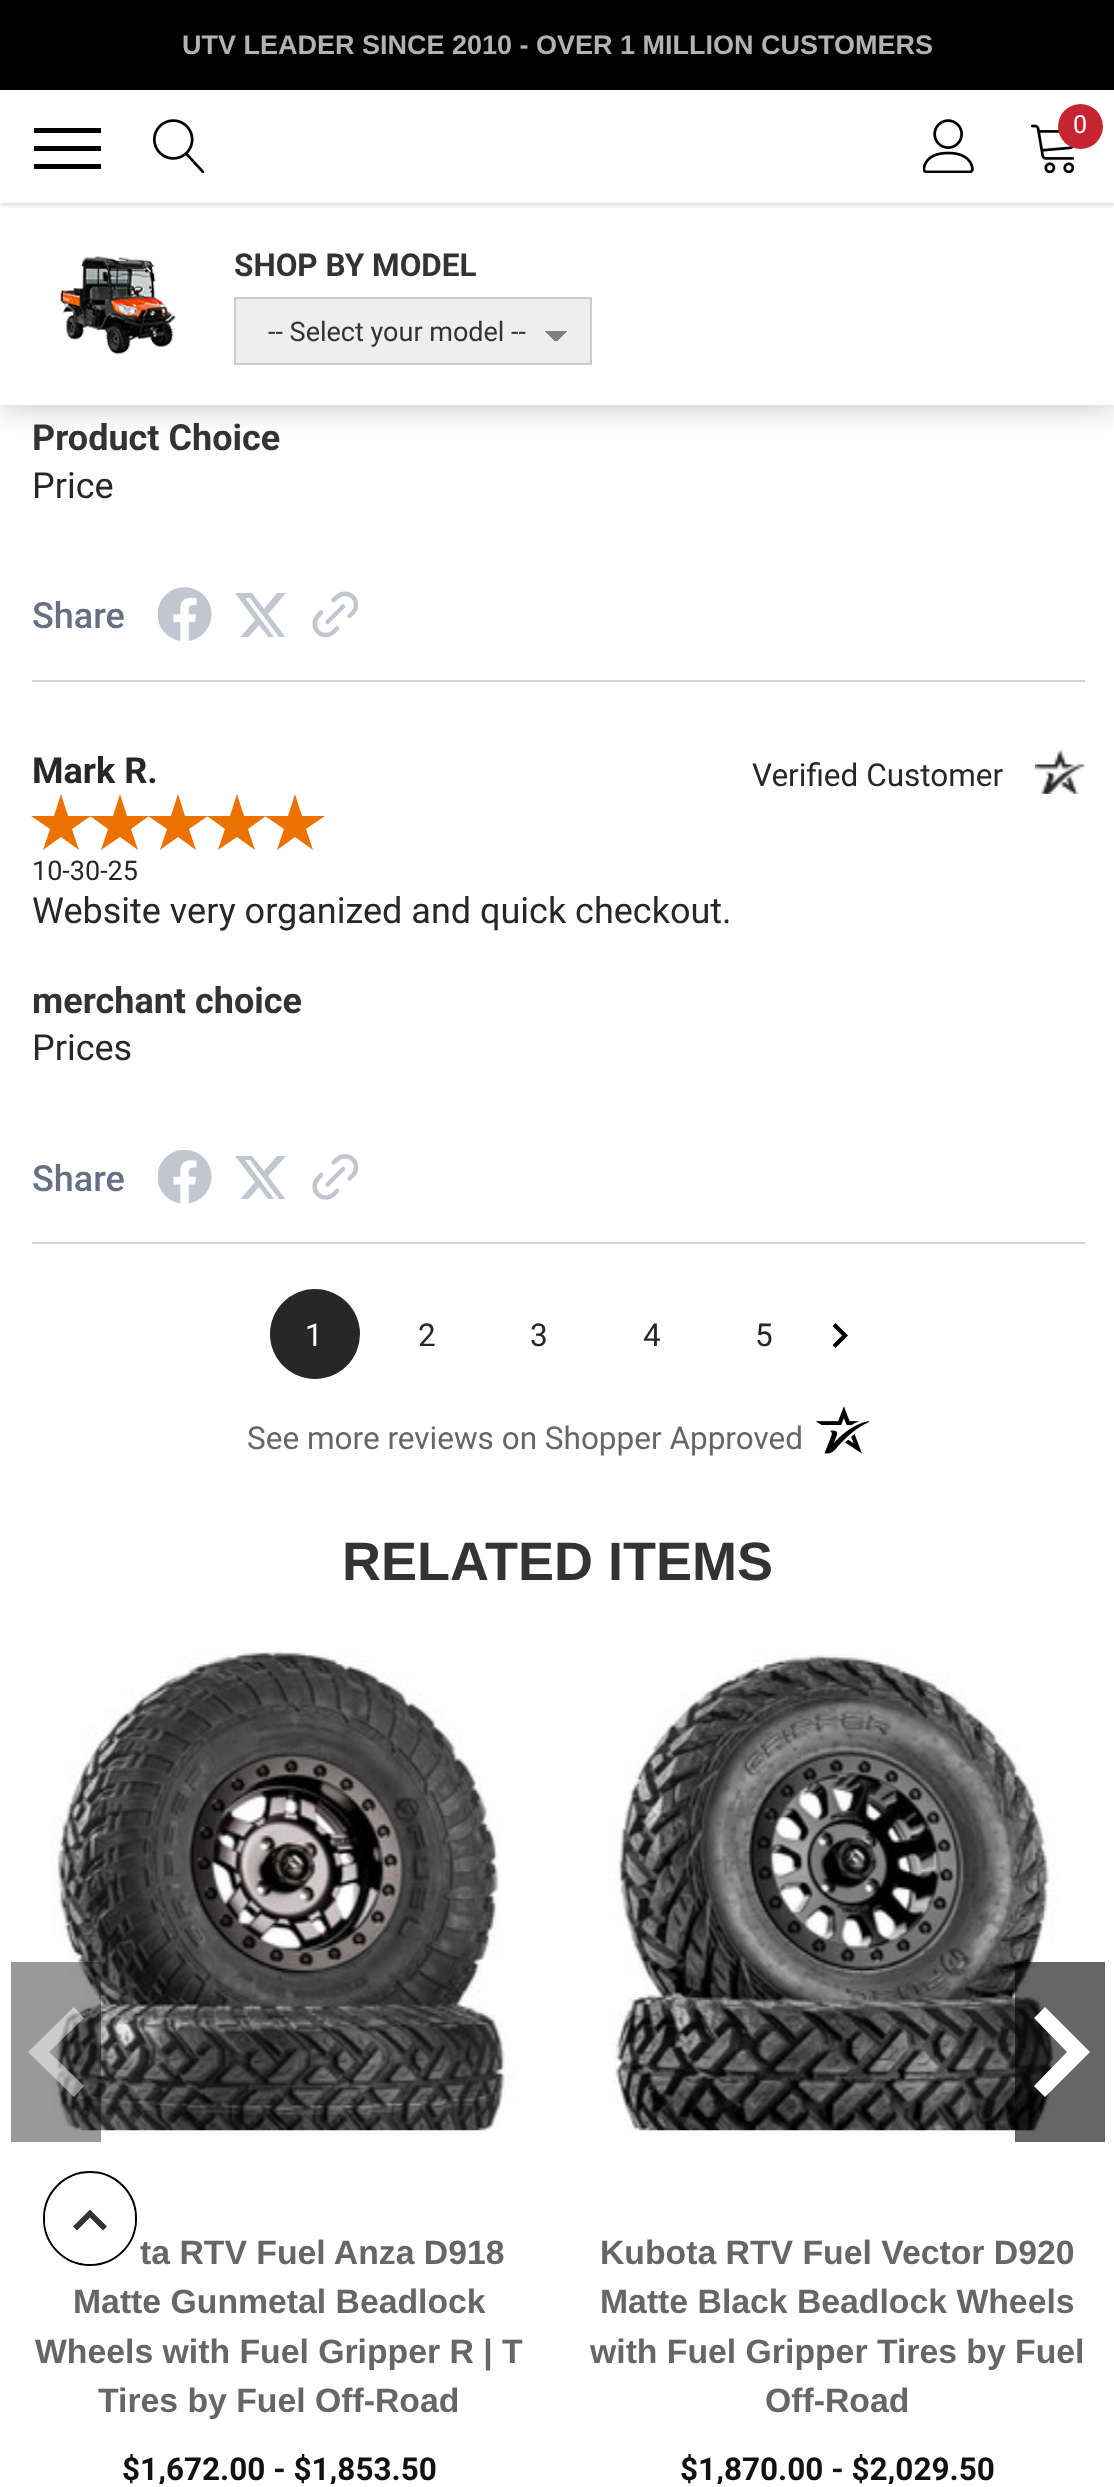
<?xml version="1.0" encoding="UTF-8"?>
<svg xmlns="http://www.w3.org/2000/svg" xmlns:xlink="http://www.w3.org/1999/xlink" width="1114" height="2487">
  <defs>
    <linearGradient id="g1" gradientUnits="userSpaceOnUse" x1="556" y1="331" x2="567" y2="342"><stop offset="0.5" stop-color="#808080" /><stop offset="0.5" stop-color="#eeeeee" /></linearGradient>
    <linearGradient id="g2" gradientUnits="userSpaceOnUse" x1="545" y1="342" x2="556" y2="331"><stop offset="0.5" stop-color="#eeeeee" /><stop offset="0.5" stop-color="#808080" /></linearGradient>
    <clipPath id="clip1"><rect x="234" y="592" width="54" height="45" /></clipPath>
    <clipPath id="clip2"><rect x="234" y="1154" width="54" height="45" /></clipPath>
    <clipPath id="clip3"><rect x="833" y="1316" width="15" height="39" /></clipPath>
    <clipPath id="clip4"><rect y="1620" width="558" height="864" /></clipPath>
    <clipPath id="clip5"><rect x="558" y="1620" width="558" height="864" /></clipPath>
  </defs>
  <rect width="100%" height="100%" fill="#ffffff" />
  <rect y="203" width="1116" height="202" fill="#000000" fill-opacity="0.25" filter="blur(16px)" />
  <rect y="203" width="1114" height="202" fill="#ffffff" />
  <rect y="2" width="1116" height="203" fill="#000000" fill-opacity="0.15" filter="blur(2px)" />
  <rect y="90" width="1114" height="113" fill="#ffffff" />
  <rect width="1114" height="90" fill="#000000" />
  <rect x="34" y="146" width="67" height="5" fill="#000000" />
  <rect x="34" y="128" width="67" height="5" fill="#000000" />
  <rect x="34" y="164" width="67" height="5" fill="#000000" />
  <image x="153" y="119" width="52" height="54" xlink:href="image1.png" />
  <image x="923" y="119" width="51" height="54" xlink:href="image2.png" />
  <image x="1031" y="124" width="44" height="49" xlink:href="image3.png" />
  <circle cx="1080.5" cy="126.5" r="22.5" fill="#c62431" />
  <image x="60" y="256" width="116" height="99" xlink:href="image4.png" />
  <rect x="236" y="299" width="354" height="64" fill="#eeeeee" />
  <rect x="556" y="331" width="11" height="10" fill="url(#g1)" />
  <rect x="545" y="331" width="11" height="10" fill="url(#g2)" />
  <rect x="235" y="298" width="356" height="66" fill="none" stroke="#cccccc" stroke-width="2" />
  <rect x="32" y="680" width="1053" height="2" fill="#d2d2d9" />
  <image x="158" y="587" width="54" height="54" xlink:href="image5.png" />
  <g clip-path="url(#clip1)">
    <path d="M 277 593 h 9 l -18 21 l 21 28 h -17 l -13 -17 l -15 17 h -8 l 19 -22 l -20 -27 h 17 l 12 16 z m -3 44 h 5 l -29 -39 h -5 z" fill="#c1c7d1" />
  </g>
  <path d="M 337 628.5 l -3.5 3.5 c -4 4 -11.5 4 -15.5 0 c -4.5 -4.5 -4.5 -12 0 -16 l 3 -3.5 m 28.5 3.5 l 3.5 -3.5 c 4 -4 4 -11.5 0 -15.5 c -4.5 -4.5 -12 -4.5 -16 0 l -3.5 3 m -6 22 l 15.5 -15.5" fill="none" stroke="#c1c7d1" stroke-width="4.5" stroke-linecap="round" stroke-linejoin="round" />
  <rect x="32" y="1242" width="1053" height="2" fill="#d2d2d9" />
  <image x="1035" y="749" width="50" height="45" xlink:href="image6.png" />
  <path d="M 61 794 l 7 22 h 23 l -19 13 l 7 21 l -18 -13 l -18 13 l 7 -21 l -19 -13 h 23 z" fill="#eb7100" />
  <path d="M 120 794 l 7 22 h 22 l -18 13 l 7 21 l -18 -13 l -19 13 l 7 -21 l -18 -13 h 23 z" fill="#eb7100" />
  <path d="M 178 794 l 7 22 h 23 l -19 13 l 7 21 l -18 -13 l -18 13 l 7 -21 l -19 -13 h 23 z" fill="#eb7100" />
  <path d="M 237 794 l 7 22 h 22 l -18 13 l 7 21 l -18 -13 l -19 13 l 7 -21 l -18 -13 h 23 z" fill="#eb7100" />
  <path d="M 295 794 l 7 22 h 23 l -19 13 l 7 21 l -18 -13 l -18 13 l 7 -21 l -19 -13 h 23 z" fill="#eb7100" />
  <image x="158" y="1150" width="54" height="54" xlink:href="image7.png" />
  <g clip-path="url(#clip2)">
    <path d="M 277 1156 h 9 l -18 20 l 21 28 h -17 l -13 -17 l -15 17 h -8 l 19 -22 l -20 -26 h 17 l 12 15 z m -3 43 h 5 l -29 -39 h -5 z" fill="#c1c7d1" />
  </g>
  <path d="M 337 1191 l -3.5 3.5 c -4 4 -11.5 4 -15.5 0 c -4.5 -4.5 -4.5 -12 0 -16 l 3 -3.5 m 28.5 3.5 l 3.5 -3.5 c 4 -4 4 -11.5 0 -15.5 c -4.5 -4.5 -12 -4.5 -16 0 l -3.5 3 m -6 22 l 15.5 -15.5" fill="none" stroke="#c1c7d1" stroke-width="4.5" stroke-linecap="round" stroke-linejoin="round" />
  <circle cx="315" cy="1334" r="45" fill="#272727" />
  <g clip-path="url(#clip3)">
    <path d="M 835.5 1323 l -3 3 l 9.5 9.5 l -9.5 9.5 l 3 3 l 12.5 -12.5 z" fill="#000000" />
  </g>
  <image x="815" y="1406" width="54" height="48" xlink:href="image8.png" />
  <image x="50" y="1649" width="465" height="482" xlink:href="image9.png" />
  <rect x="11" y="1962" width="90" height="180" fill="#000000" fill-opacity="0.4" />
  <path d="M 74 2007 l 10 11 l -35 34 l 35 34 l -10 11 l -46 -45 z" fill="#ffffff" fill-opacity="0.5" />
  <image x="608" y="1653" width="450" height="478" xlink:href="image10.png" />
  <rect x="1015" y="1962" width="90" height="180" fill="#000000" fill-opacity="0.6" />
  <path d="M 1034 2018 l 11 -11 l 45 45 l -45 45 l -11 -11 l 33 -34 z" fill="#ffffff" />
  <rect x="44" y="2172" width="92" height="93" rx="46" fill="none" stroke="#000000" stroke-width="2" />
  <circle cx="90" cy="2219" r="45" fill="#ffffff" />
  <path d="M 77 2230.5 l 13 -13 l 13 13 l 4 -4 l -17 -17 l -17 17 z" fill="#323232" />
  <text x="182" y="54" style="font-family: Liberation Sans; font-size: 27px; font-weight: bold; fill: #b2b2b2">UTV LEADER SINCE 2010 - OVER 1 MILLION CUSTOMERS</text>
  <text x="1073" y="133" style="font-family: Roboto; font-size: 25px; fill: #ffffff">0</text>
  <text x="234" y="276" style="font-family: Roboto; font-size: 31.5px; font-weight: bold; fill: #333333">SHOP BY MODEL</text>
  <text x="268" y="341" style="font-family: Roboto; font-size: 27px; fill: #333333">-- Select your model --</text>
  <text x="32" y="450" style="font-family: Roboto; font-size: 36px; font-weight: bold; fill: #333333">Product Choice</text>
  <text x="32" y="498" style="font-family: Roboto; font-size: 36px; fill: #272727">Price</text>
  <text x="32" y="628" style="font-family: Roboto; font-size: 36px; font-weight: 500; fill: #667085">Share</text>
  <text x="32" y="783" style="font-family: Roboto; font-size: 36px; font-weight: bold; fill: #272727">Mark R.</text>
  <text x="752" y="786" style="font-family: Roboto; font-size: 31.5px; fill: #272727">Verified Customer</text>
  <text x="32" y="880" style="font-family: Roboto; font-size: 27px; fill: #272727">10-30-25</text>
  <text x="32" y="923" style="font-family: Roboto; font-size: 36px; fill: #272727">Website very organized and quick checkout.</text>
  <text x="32" y="1013" style="font-family: Roboto; font-size: 36px; font-weight: bold; fill: #333333">merchant choice</text>
  <text x="32" y="1060" style="font-family: Roboto; font-size: 36px; fill: #272727">Prices</text>
  <text x="32" y="1191" style="font-family: Roboto; font-size: 36px; font-weight: 500; fill: #667085">Share</text>
  <text x="305" y="1346" style="font-family: Roboto; font-size: 31.5px; fill: #ffffff">1</text>
  <text x="418" y="1346" style="font-family: Roboto; font-size: 31.5px; fill: #272727">2</text>
  <text x="530" y="1346" style="font-family: Roboto; font-size: 31.5px; fill: #272727">3</text>
  <text x="643" y="1346" style="font-family: Roboto; font-size: 31.5px; fill: #272727">4</text>
  <text x="755" y="1346" style="font-family: Roboto; font-size: 31.5px; fill: #272727">5</text>
  <text x="247" y="1449" style="font-family: Roboto; font-size: 31.5px; fill: #666666">See more reviews on Shopper Approved</text>
  <text x="342" y="1580" style="font-family: Liberation Sans; font-size: 54px; font-weight: bold; fill: #333333">RELATED ITEMS</text>
  <text x="140" y="2264" style="font-family: Liberation Sans; font-size: 33.75px; font-weight: bold; fill: #666666">ta RTV Fuel Anza D918</text>
  <text x="73" y="2313" style="font-family: Liberation Sans; font-size: 33.75px; font-weight: bold; fill: #666666">Matte Gunmetal Beadlock</text>
  <text x="35" y="2363" style="font-family: Liberation Sans; font-size: 33.75px; font-weight: bold; fill: #666666">Wheels with Fuel Gripper R | T</text>
  <text x="98" y="2412" style="font-family: Liberation Sans; font-size: 33.75px; font-weight: bold; fill: #666666">Tires by Fuel Off-Road</text>
  <g clip-path="url(#clip4)">
    <text x="122" y="2480" style="font-family: Roboto; font-size: 31.5px; font-weight: bold; fill: #111111">$1,672.00 - $1,853.50</text>
  </g>
  <text x="600" y="2264" style="font-family: Liberation Sans; font-size: 33.75px; font-weight: bold; fill: #666666">Kubota RTV Fuel Vector D920</text>
  <text x="600" y="2313" style="font-family: Liberation Sans; font-size: 33.75px; font-weight: bold; fill: #666666">Matte Black Beadlock Wheels</text>
  <text x="590" y="2363" style="font-family: Liberation Sans; font-size: 33.75px; font-weight: bold; fill: #666666">with Fuel Gripper Tires by Fuel</text>
  <text x="765" y="2412" style="font-family: Liberation Sans; font-size: 33.75px; font-weight: bold; fill: #666666">Off-Road</text>
  <g clip-path="url(#clip5)">
    <text x="680" y="2480" style="font-family: Roboto; font-size: 31.5px; font-weight: bold; fill: #111111">$1,870.00 - $2,029.50</text>
  </g>
</svg>
